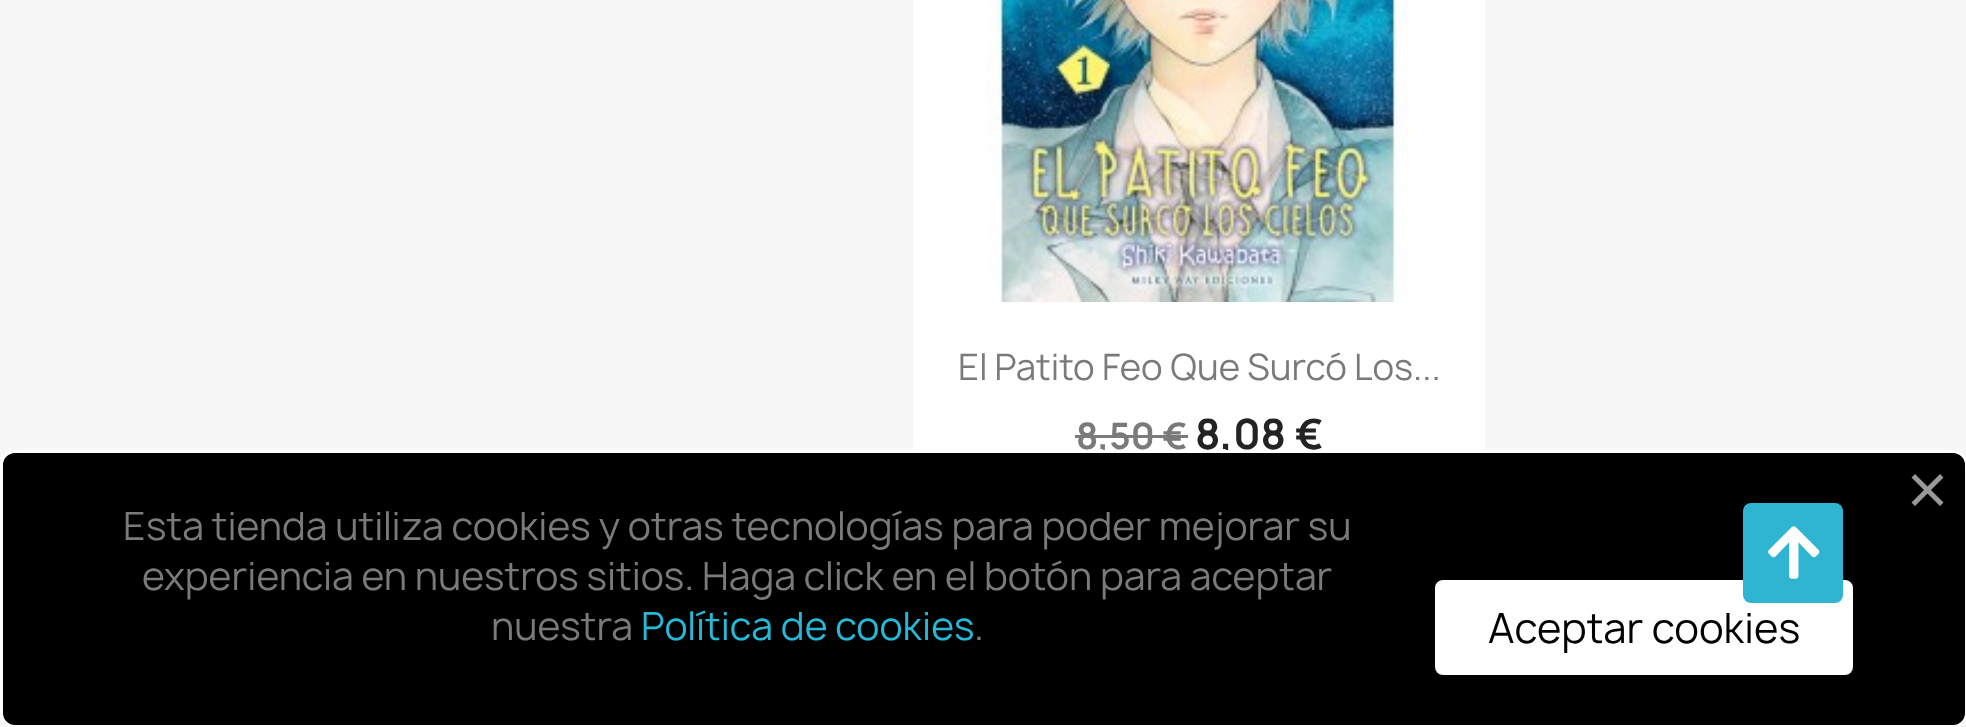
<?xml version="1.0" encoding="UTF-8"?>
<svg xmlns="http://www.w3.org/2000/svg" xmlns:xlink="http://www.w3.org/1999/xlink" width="1966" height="727">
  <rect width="100%" height="100%" fill="#f6f6f6" />
  <rect x="913" width="572" height="450" fill="#ffffff" />
  <image x="986" y="0" width="430" height="302" xlink:href="image1.png" />
  <rect x="1075" y="435" width="113" height="3" fill="#7a7a7a" />
  <rect x="5" y="455" width="1958" height="268" rx="10" fill="#ffffff" filter="blur(9px)" />
  <text x="958" y="380" style="font-family: Manrope; font-size: 35px; fill: #7a7a7a">El Patito Feo Que Surcó Los...</text>
  <text x="1076" y="449" style="font-family: Manrope; font-size: 35px; font-weight: bold; fill: #7a7a7a">8,50 €</text>
  <text x="1195" y="449" style="font-family: Manrope; font-size: 40px; font-weight: bold; fill: #232323">8,08 €</text>
  <rect x="1.5" y="451.5" width="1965" height="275" rx="13.5" fill="#000000" stroke="#ffffff" stroke-width="3" />
  <path d="M 1911.5 502.5 l 28.5 -28.5 l 3.5 3.5 l -28.5 28.5 z" fill="#999999" />
  <path d="M 1915 474 l 28.5 28.5 l -3.5 3.5 l -28.5 -28.5 z" fill="#999999" />
  <text x="123" y="540" style="font-family: Manrope; font-size: 37.5px; fill: #7a7a7a">Esta tienda utiliza cookies y otras tecnologías para poder mejorar su</text>
  <text x="142" y="590" style="font-family: Manrope; font-size: 37.5px; fill: #7a7a7a">experiencia en nuestros sitios. Haga click en el botón para aceptar</text>
  <text x="491" y="640" style="font-family: Manrope; font-size: 37.5px; fill: #7a7a7a">nuestra</text>
  <text x="641" y="640" style="font-family: Manrope; font-size: 37.5px; fill: #24b9d7">Política de cookies</text>
  <text x="974" y="640" style="font-family: Manrope; font-size: 37.5px; fill: #7a7a7a">.</text>
  <rect x="1436.5" y="581.5" width="415" height="92" rx="6.5" fill="#ffffff" stroke="#ffffff" stroke-width="3" />
  <rect x="1743" y="503" width="100" height="100" rx="8" fill="#2fb5d2" />
  <image x="1768" y="526" width="52" height="53" xlink:href="image2.png" />
  <text x="1488" y="643" style="font-family: Manrope; font-size: 40px; fill: #000000">Aceptar cookies</text>
</svg>
